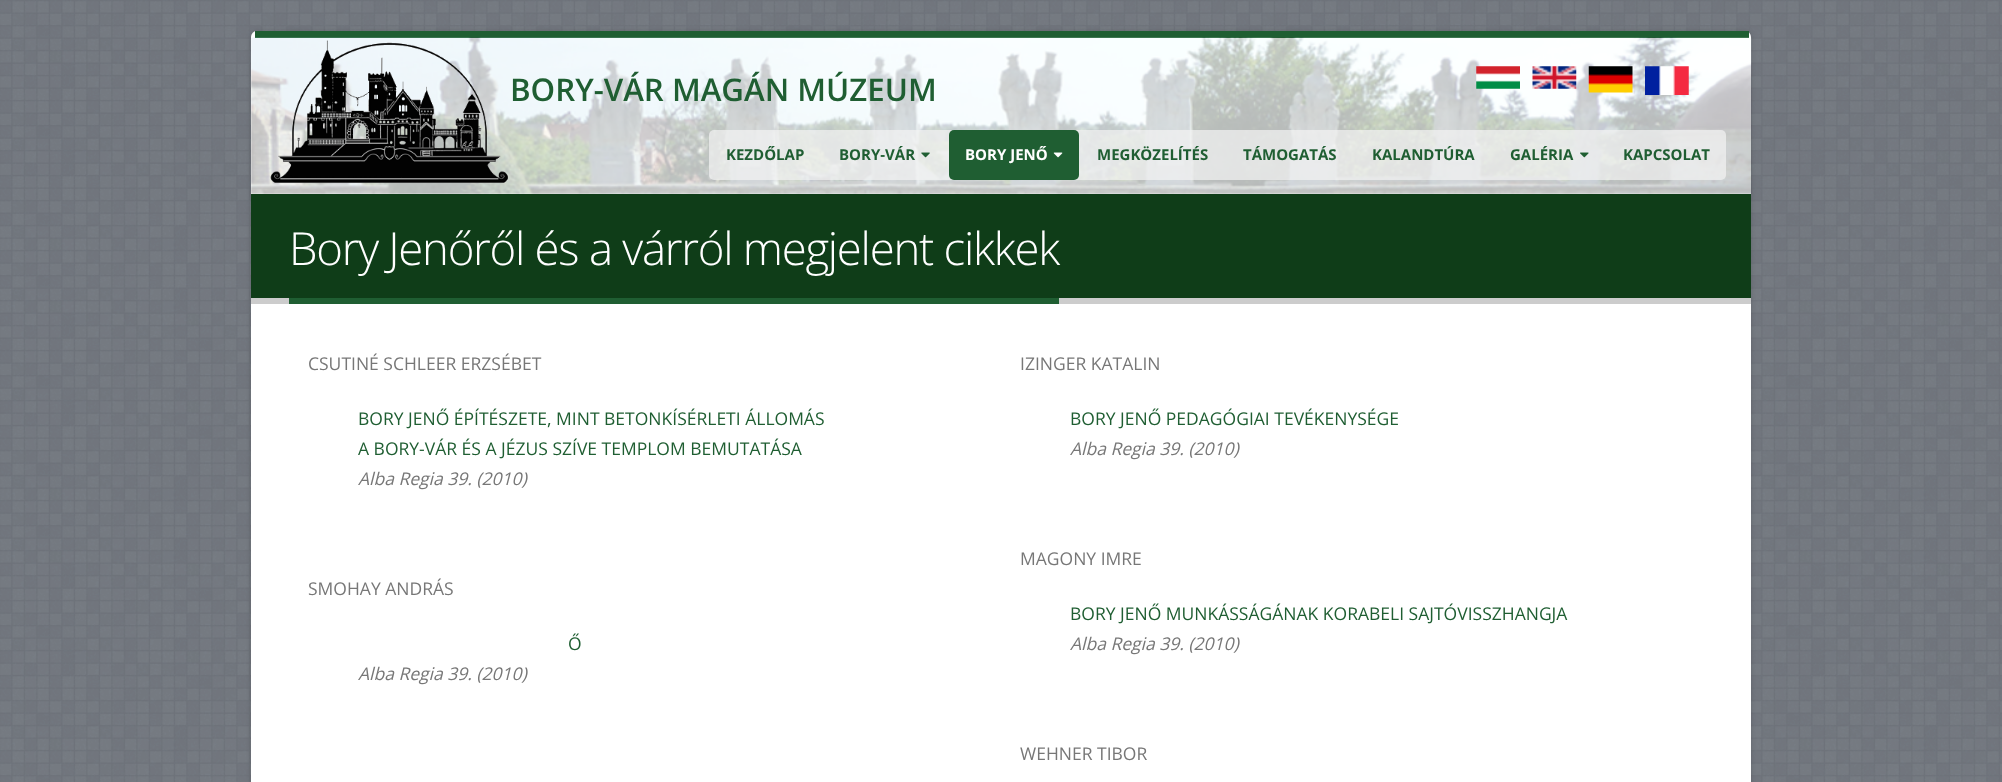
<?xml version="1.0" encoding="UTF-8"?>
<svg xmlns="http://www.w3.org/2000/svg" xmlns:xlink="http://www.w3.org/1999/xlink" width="2002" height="782">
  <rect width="100%" height="100%" fill="#ffffff" />
  <image x="0" y="0" width="2002" height="782" xlink:href="image1.png" />
  <rect x="251" y="31" width="1500" height="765" rx="6" fill="#000000" fill-opacity="0.15" filter="blur(2.5px)" />
  <rect x="251" y="31" width="1500" height="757" rx="6" fill="#ffffff" />
  <rect x="255" y="31" width="1494" height="7" fill="#1f5e32" />
  <image x="251" y="37" width="1501" height="157" xlink:href="image2.png" />
  <image x="270" y="40" width="238" height="143" xlink:href="image3.png" />
  <image x="1476" y="66" width="44" height="23" xlink:href="image4.png" />
  <image x="1532" y="66" width="45" height="23" xlink:href="image5.png" />
  <image x="1588" y="66" width="45" height="27" xlink:href="image6.png" />
  <image x="1645" y="66" width="44" height="29" xlink:href="image7.png" />
  <rect x="709" y="130" width="1017" height="50" rx="5" fill="#f4f4f4" fill-opacity="0.7" />
  <image x="921" y="152" width="9" height="6" xlink:href="image8.png" />
  <rect x="949" y="130" width="130" height="50" rx="5" fill="#1f5e32" />
  <image x="1053" y="152" width="10" height="6" xlink:href="image9.png" />
  <image x="1580" y="152" width="9" height="6" xlink:href="image10.png" />
  <rect x="251" y="194" width="1500" height="104" fill="#0f3d18" />
  <rect x="251" y="298" width="1500" height="6" fill="#cccccc" />
  <rect x="289" y="298" width="770" height="6" fill="#1f5e32" />
  <text x="510" y="101" style="font-family: Open Sans; font-size: 31.25px; font-weight: 600; fill: #1f5e32">BORY-VÁR MAGÁN MÚZEUM</text>
  <text x="726" y="160" style="font-family: Open Sans; font-size: 15px; font-weight: bold; fill: #1f5e32">KEZDŐLAP</text>
  <text x="839" y="160" style="font-family: Open Sans; font-size: 15px; font-weight: bold; fill: #1f5e32">BORY-VÁR</text>
  <text x="965" y="160" style="font-family: Open Sans; font-size: 15px; font-weight: bold; fill: #ffffff">BORY JENŐ</text>
  <text x="1097" y="160" style="font-family: Open Sans; font-size: 15px; font-weight: bold; fill: #1f5e32">MEGKÖZELÍTÉS</text>
  <text x="1243" y="160" style="font-family: Open Sans; font-size: 15px; font-weight: bold; fill: #1f5e32">TÁMOGATÁS</text>
  <text x="1372" y="160" style="font-family: Open Sans; font-size: 15px; font-weight: bold; fill: #1f5e32">KALANDTÚRA</text>
  <text x="1510" y="160" style="font-family: Open Sans; font-size: 15px; font-weight: bold; fill: #1f5e32">GALÉRIA</text>
  <text x="1623" y="160" style="font-family: Open Sans; font-size: 15px; font-weight: bold; fill: #1f5e32">KAPCSOLAT</text>
  <text x="289" y="265" style="font-family: Open Sans; font-size: 45.5px; font-weight: 300; letter-spacing: -1.25px; fill: #ffffff">Bory Jenőről és a várról megjelent cikkek</text>
  <text x="308" y="370" style="font-family: Open Sans; font-size: 17.5px; fill: #777777">CSUTINÉ SCHLEER ERZSÉBET</text>
  <text x="358" y="425" style="font-family: Open Sans; font-size: 17.5px; fill: #1f5e32">BORY JENŐ ÉPÍTÉSZETE, MINT BETONKÍSÉRLETI ÁLLOMÁS</text>
  <text x="358" y="455" style="font-family: Open Sans; font-size: 17.5px; fill: #1f5e32">A BORY-VÁR ÉS A JÉZUS SZÍVE TEMPLOM BEMUTATÁSA</text>
  <text x="358" y="485" style="font-family: Open Sans; font-size: 17.5px; font-style: italic; fill: #777777">Alba Regia 39. (2010)</text>
  <text x="308" y="595" style="font-family: Open Sans; font-size: 17.5px; fill: #777777">SMOHAY ANDRÁS</text>
  <text x="568" y="650" style="font-family: Open Sans; font-size: 17.5px; fill: #1f5e32">Ő</text>
  <text x="358" y="680" style="font-family: Open Sans; font-size: 17.5px; font-style: italic; fill: #777777">Alba Regia 39. (2010)</text>
  <text x="1020" y="370" style="font-family: Open Sans; font-size: 17.5px; fill: #777777">IZINGER KATALIN</text>
  <text x="1070" y="425" style="font-family: Open Sans; font-size: 17.5px; fill: #1f5e32">BORY JENŐ PEDAGÓGIAI TEVÉKENYSÉGE</text>
  <text x="1070" y="455" style="font-family: Open Sans; font-size: 17.5px; font-style: italic; fill: #777777">Alba Regia 39. (2010)</text>
  <text x="1020" y="565" style="font-family: Open Sans; font-size: 17.5px; fill: #777777">MAGONY IMRE</text>
  <text x="1070" y="620" style="font-family: Open Sans; font-size: 17.5px; fill: #1f5e32">BORY JENŐ MUNKÁSSÁGÁNAK KORABELI SAJTÓVISSZHANGJA</text>
  <text x="1070" y="650" style="font-family: Open Sans; font-size: 17.5px; font-style: italic; fill: #777777">Alba Regia 39. (2010)</text>
  <text x="1020" y="760" style="font-family: Open Sans; font-size: 17.5px; fill: #777777">WEHNER TIBOR</text>
</svg>
